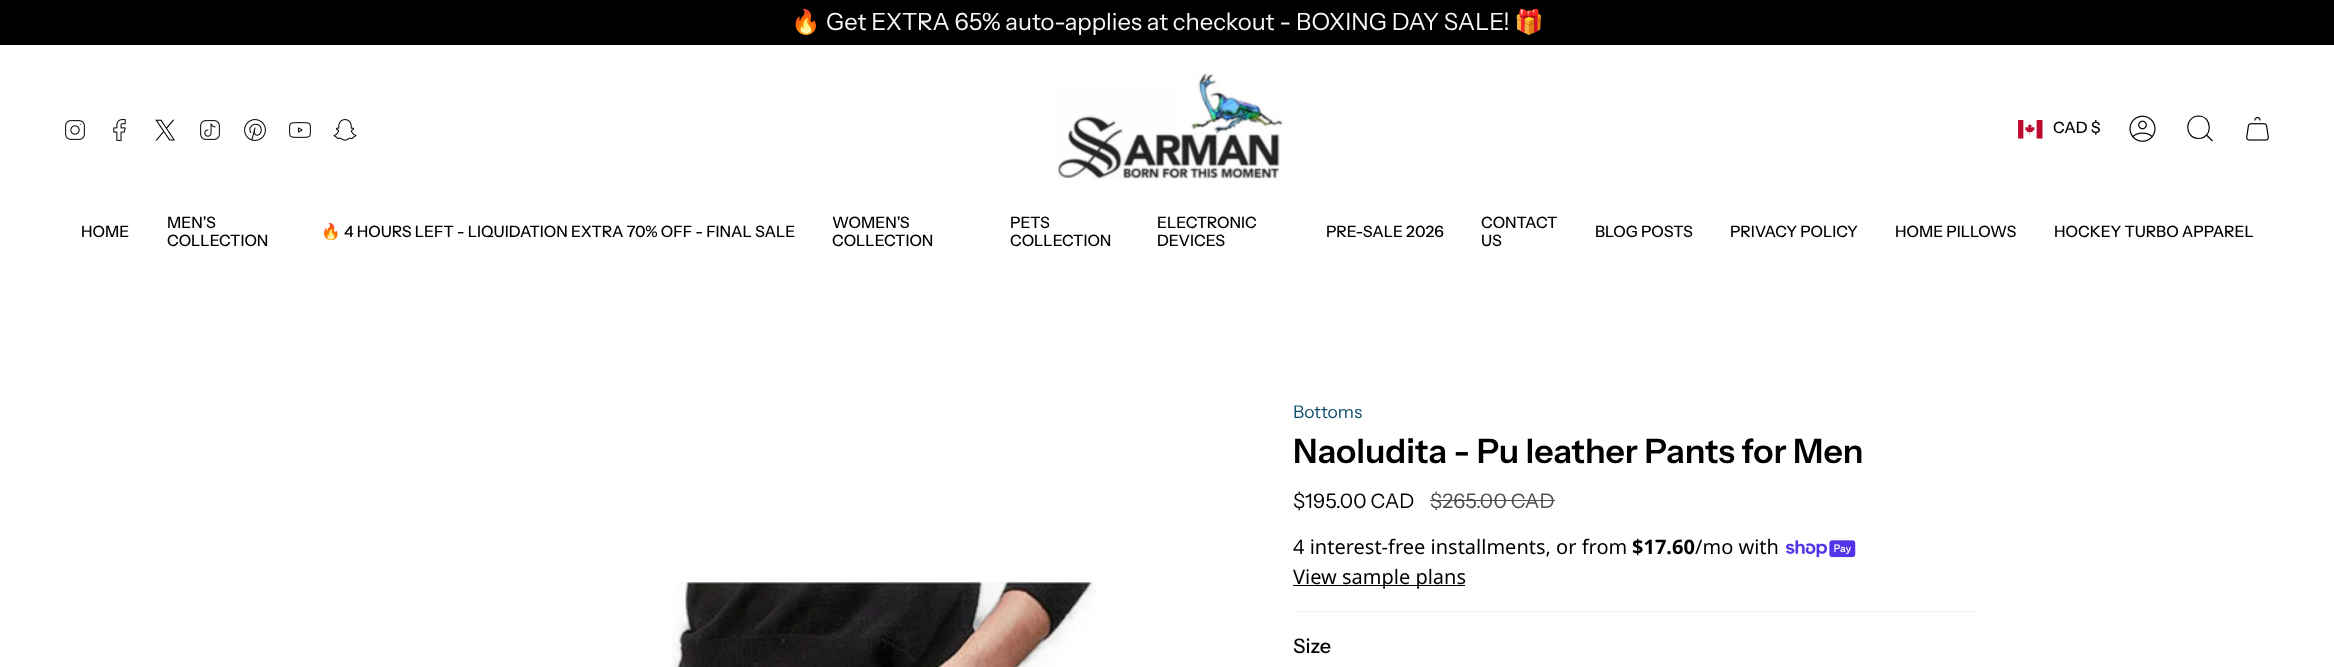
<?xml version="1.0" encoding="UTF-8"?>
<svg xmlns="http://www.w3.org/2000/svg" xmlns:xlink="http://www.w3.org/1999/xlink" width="2334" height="667">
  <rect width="100%" height="100%" fill="#ffffff" />
  <rect width="2334" height="45" fill="#000000" />
  <image x="65" y="120" width="20" height="20" xlink:href="image1.png" />
  <image x="113" y="119" width="13" height="22" xlink:href="image2.png" />
  <image x="155" y="119" width="20" height="22" xlink:href="image3.png" />
  <image x="200" y="120" width="20" height="20" xlink:href="image4.png" />
  <image x="244" y="119" width="22" height="22" xlink:href="image5.png" />
  <image x="289" y="122" width="22" height="16" xlink:href="image6.png" />
  <image x="333" y="119" width="24" height="22" xlink:href="image7.png" />
  <image x="1057" y="73" width="227" height="107" xlink:href="image8.png" />
  <image x="2018" y="120" width="25" height="19" xlink:href="image9.png" />
  <image x="2129" y="115" width="27" height="27" xlink:href="image10.png" />
  <path d="M 2198.5 116 c 14.5 0 14.5 23 -0.5 22.5 c -14 -1 -13.5 -22 0.5 -22.5 z m 8 19 l 6 6" fill="none" stroke="#000000" stroke-width="1.2" />
  <image x="2246" y="116" width="23" height="25" xlink:href="image11.png" />
  <image x="671" y="580" width="426" height="87" xlink:href="image12.png" />
  <rect x="1430" y="500" width="125" height="1" fill="#4d4d4d" />
  <image x="1786" y="540" width="70" height="18" xlink:href="image13.png" />
  <rect x="1293" y="585" width="172" height="1" fill="#000000" />
  <rect x="1293" y="611" width="687" height="1" fill="#f3f3f3" />
  <text x="791" y="30" style="font-family: Noto Color Emoji; font-size: 23.75px; fill: #f7f9fa">🔥</text>
  <text x="826" y="30" style="font-family: Instrument Sans; font-size: 23.75px; fill: #f7f9fa">Get EXTRA 65% auto-applies at checkout - BOXING DAY SALE!</text>
  <text x="1514" y="30" style="font-family: Noto Color Emoji; font-size: 23.75px; fill: #f7f9fa">🎁</text>
  <text x="2053" y="133" style="font-family: Instrument Sans; font-size: 15.75px; font-weight: 500; fill: #000000">CAD $</text>
  <text x="81" y="237" style="font-family: Instrument Sans; font-size: 15.75px; font-weight: 500; fill: #000000">HOME</text>
  <text x="167" y="228" style="font-family: Instrument Sans; font-size: 15.75px; font-weight: 500; fill: #000000">MEN'S</text>
  <text x="167" y="246" style="font-family: Instrument Sans; font-size: 15.75px; font-weight: 500; fill: #000000">COLLECTION</text>
  <text x="321" y="237" style="font-family: Noto Color Emoji; font-size: 15.75px; fill: #000000">🔥</text>
  <text x="344" y="237" style="font-family: Instrument Sans; font-size: 15.75px; font-weight: 500; fill: #000000">4 HOURS LEFT - LIQUIDATION EXTRA 70% OFF - FINAL SALE</text>
  <text x="832" y="228" style="font-family: Instrument Sans; font-size: 15.75px; font-weight: 500; fill: #000000">WOMEN'S</text>
  <text x="832" y="246" style="font-family: Instrument Sans; font-size: 15.75px; font-weight: 500; fill: #000000">COLLECTION</text>
  <text x="1010" y="228" style="font-family: Instrument Sans; font-size: 15.75px; font-weight: 500; fill: #000000">PETS</text>
  <text x="1010" y="246" style="font-family: Instrument Sans; font-size: 15.75px; font-weight: 500; fill: #000000">COLLECTION</text>
  <text x="1157" y="228" style="font-family: Instrument Sans; font-size: 15.75px; font-weight: 500; fill: #000000">ELECTRONIC</text>
  <text x="1157" y="246" style="font-family: Instrument Sans; font-size: 15.75px; font-weight: 500; fill: #000000">DEVICES</text>
  <text x="1326" y="237" style="font-family: Instrument Sans; font-size: 15.75px; font-weight: 500; fill: #000000">PRE-SALE 2026</text>
  <text x="1481" y="228" style="font-family: Instrument Sans; font-size: 15.75px; font-weight: 500; fill: #000000">CONTACT</text>
  <text x="1481" y="246" style="font-family: Instrument Sans; font-size: 15.75px; font-weight: 500; fill: #000000">US</text>
  <text x="1595" y="237" style="font-family: Instrument Sans; font-size: 15.75px; font-weight: 500; fill: #000000">BLOG POSTS</text>
  <text x="1730" y="237" style="font-family: Instrument Sans; font-size: 15.75px; font-weight: 500; fill: #000000">PRIVACY POLICY</text>
  <text x="1895" y="237" style="font-family: Instrument Sans; font-size: 15.75px; font-weight: 500; fill: #000000">HOME PILLOWS</text>
  <text x="2054" y="237" style="font-family: Instrument Sans; font-size: 15.75px; font-weight: 500; fill: #000000">HOCKEY TURBO APPAREL</text>
  <text x="1293" y="418" style="font-family: Instrument Sans; font-size: 17.5px; fill: #0c4d6b">Bottoms</text>
  <text x="1293" y="463" style="font-family: Instrument Sans; font-size: 33.75px; font-weight: 600; fill: #000000">Naoludita - Pu leather Pants for Men</text>
  <text x="1293" y="508" style="font-family: Instrument Sans; font-size: 20px; fill: #000000">$195.00 CAD</text>
  <text x="1430" y="508" style="font-family: Instrument Sans; font-size: 20px; fill: #4d4d4d">$265.00 CAD</text>
  <text x="1293" y="554" style="font-family: Noto Sans; font-size: 20px; fill: #000000">4 interest-free installments, or from</text>
  <text x="1632" y="554" style="font-family: Noto Sans; font-size: 20px; font-weight: bold; fill: #000000">$17.60</text>
  <text x="1695" y="554" style="font-family: Noto Sans; font-size: 20px; fill: #000000">/mo with</text>
  <text x="1293" y="584" style="font-family: Noto Sans; font-size: 20px; fill: #000000">View sample plans</text>
  <text x="1293" y="653" style="font-family: Instrument Sans; font-size: 20px; font-weight: 500; fill: #000000">Size</text>
</svg>
